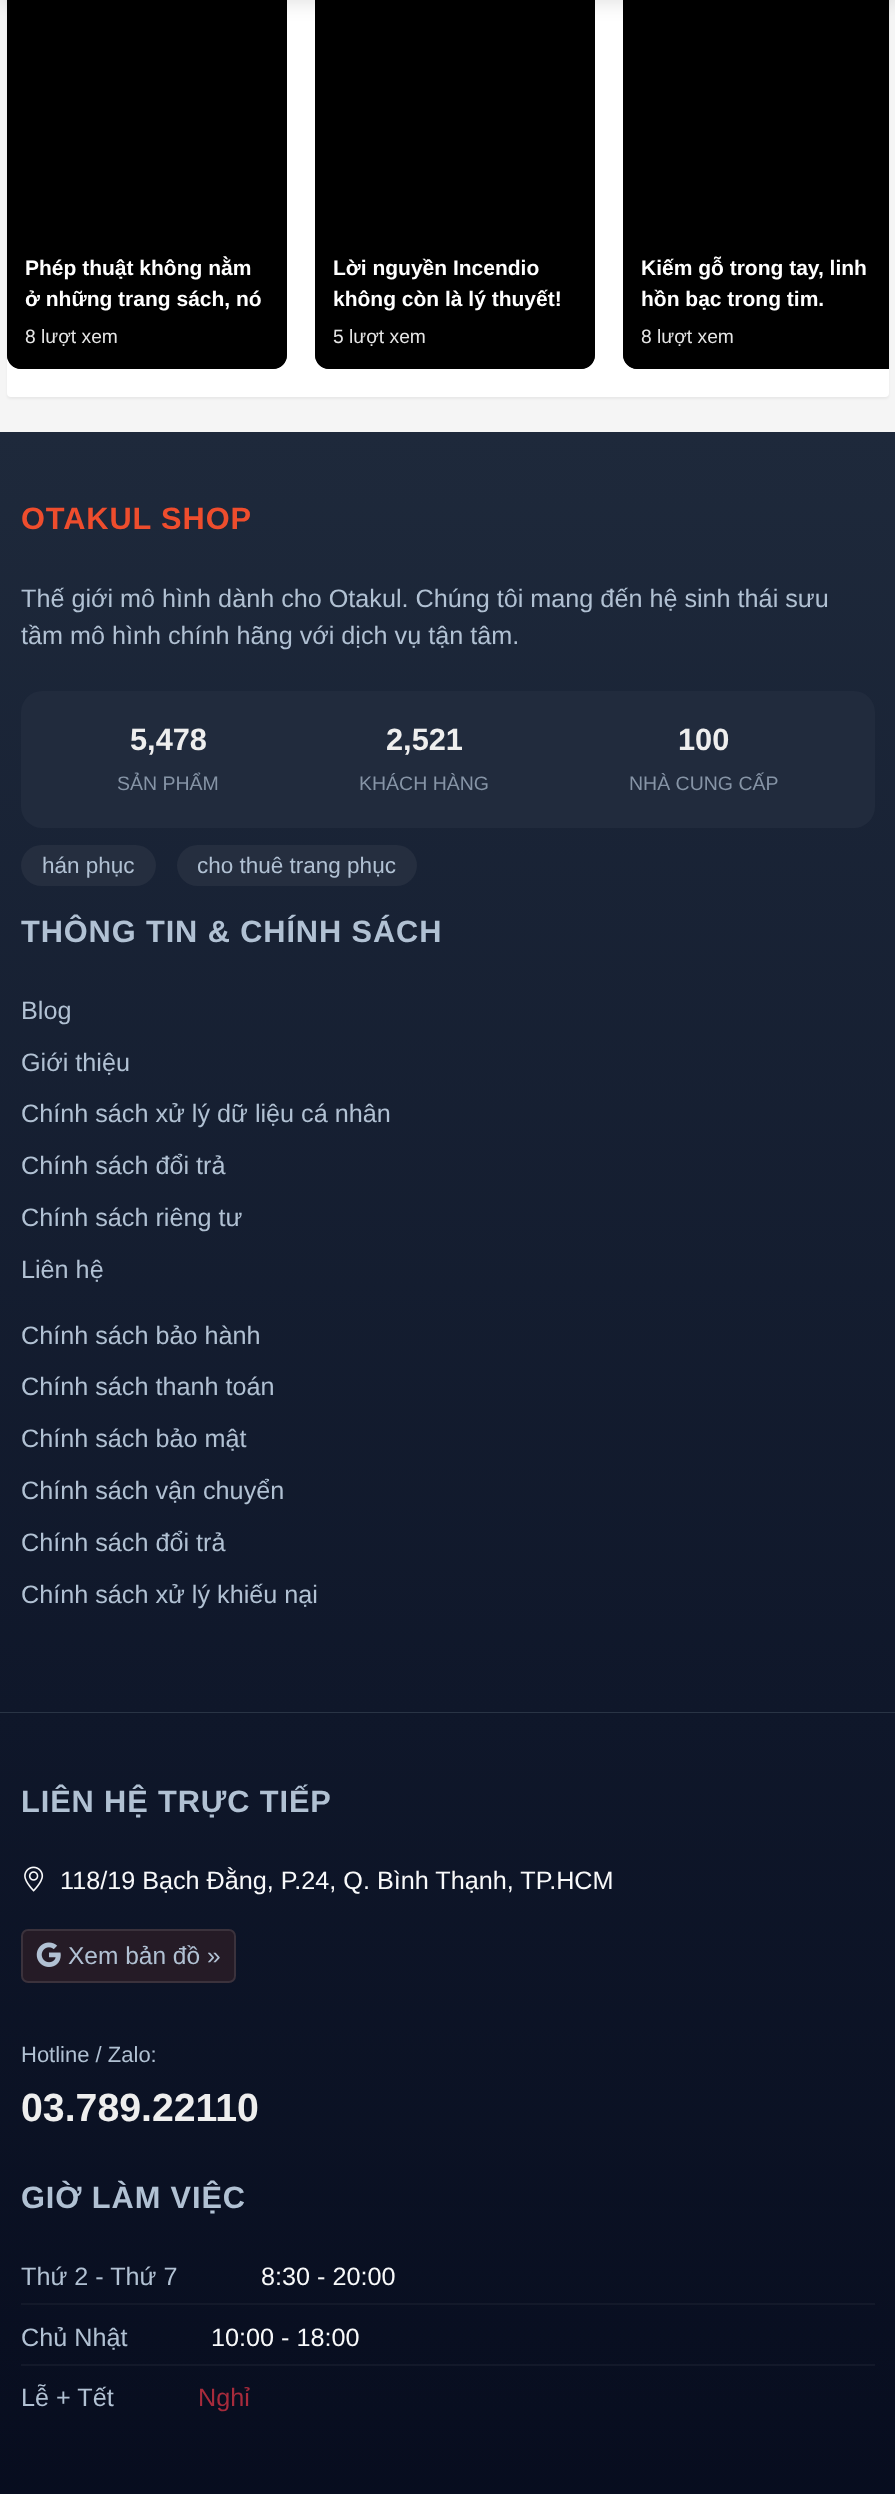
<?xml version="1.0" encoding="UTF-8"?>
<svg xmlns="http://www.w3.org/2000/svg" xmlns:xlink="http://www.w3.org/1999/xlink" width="895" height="2494">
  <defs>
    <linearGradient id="g1" gradientUnits="userSpaceOnUse" x1="147" y1="235" x2="147" y2="369"><stop offset="0" stop-color="#000000" stop-opacity="0" /><stop offset="1" stop-color="#000000" stop-opacity="0.8" /></linearGradient>
    <linearGradient id="g2" gradientUnits="userSpaceOnUse" x1="455" y1="235" x2="455" y2="369"><stop offset="0" stop-color="#000000" stop-opacity="0" /><stop offset="1" stop-color="#000000" stop-opacity="0.8" /></linearGradient>
    <linearGradient id="g3" gradientUnits="userSpaceOnUse" x1="763" y1="235" x2="763" y2="369"><stop offset="0" stop-color="#000000" stop-opacity="0" /><stop offset="1" stop-color="#000000" stop-opacity="0.8" /></linearGradient>
    <linearGradient id="g4" gradientUnits="userSpaceOnUse" x1="448" y1="432" x2="448" y2="1712"><stop offset="0" stop-color="#1e293b" /><stop offset="1" stop-color="#0f172a" /></linearGradient>
    <linearGradient id="g5" gradientUnits="userSpaceOnUse" x1="448" y1="1712" x2="448" y2="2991"><stop offset="0" stop-color="#293445" /><stop offset="1" stop-color="#1b2335" /></linearGradient>
    <linearGradient id="g6" gradientUnits="userSpaceOnUse" x1="448" y1="1713" x2="448" y2="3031"><stop offset="0" stop-color="#0f172a" /><stop offset="1" stop-color="#020617" /></linearGradient>
  </defs>
  <rect width="100%" height="100%" fill="#f5f5f5" />
  <rect x="7" y="-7" width="882" height="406" rx="4" fill="#000000" fill-opacity="0.05" filter="blur(1px)" />
  <rect x="7" y="-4" width="882" height="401" rx="4" fill="#ffffff" />
  <rect x="7" y="-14" width="280" height="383" rx="14" fill="#000000" />
  <rect x="315" y="-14" width="280" height="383" rx="14" fill="#000000" />
  <path d="M 637 -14 h 252 v 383 h -252 c -7.5 0 -14 -6.5 -14 -14 v -355 c 0 -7.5 6.5 -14 14 -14 z" fill="#000000" />
  <rect y="-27" width="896" height="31" fill="#000000" fill-opacity="0.1" filter="blur(9px)" />
  <path d="M 7 235 h 280 v 120 c 0 7.5 -6.5 14 -14 14 h -252 c -7.5 0 -14 -6.5 -14 -14 z" fill="url(#g1)" />
  <path d="M 315 235 h 280 v 120 c 0 7.5 -6.5 14 -14 14 h -252 c -7.5 0 -14 -6.5 -14 -14 z" fill="url(#g2)" />
  <path d="M 623 235 h 266 v 134 h -252 c -7.5 0 -14 -6.5 -14 -14 z" fill="url(#g3)" />
  <rect y="432" width="895" height="1280" fill="url(#g4)" />
  <rect y="1712" width="895" height="1" fill="url(#g5)" />
  <rect x="21" y="691" width="854" height="137" rx="21" fill="#212b3d" />
  <rect x="21" y="845" width="135" height="41" rx="20.5" fill="#252e3f" />
  <rect x="177" y="845" width="240" height="41" rx="20.5" fill="#252e3f" />
  <rect y="1713" width="895" height="781" fill="url(#g6)" />
  <image x="24" y="1866" width="20" height="26" xlink:href="image1.png" />
  <rect x="21" y="1929" width="215" height="54" rx="7" fill="#251b26" />
  <rect x="22" y="1930" width="213" height="52" rx="6" fill="none" stroke="#ffffff" stroke-opacity="0.1" stroke-width="2" />
  <image x="36" y="1942" width="25" height="25" xlink:href="image2.png" />
  <rect x="21" y="2303" width="854" height="2" fill="#13192a" />
  <rect x="21" y="2364" width="854" height="2" fill="#13192a" />
  <text x="25" y="275" style="font-family: Liberation Sans; font-size: 21px; font-weight: bold; fill: #ffffff">Phép thuật không nằm</text>
  <text x="25" y="306" style="font-family: Liberation Sans; font-size: 21px; font-weight: bold; fill: #ffffff">ở những trang sách, nó</text>
  <text x="25" y="343" style="font-family: Liberation Sans; font-size: 19.25px; fill: #e6e6e6">8 lượt xem</text>
  <text x="333" y="275" style="font-family: Liberation Sans; font-size: 21px; font-weight: bold; fill: #ffffff">Lời nguyền Incendio</text>
  <text x="333" y="306" style="font-family: Liberation Sans; font-size: 21px; font-weight: bold; fill: #ffffff">không còn là lý thuyết!</text>
  <text x="333" y="343" style="font-family: Liberation Sans; font-size: 19.25px; fill: #e6e6e6">5 lượt xem</text>
  <text x="641" y="275" style="font-family: Liberation Sans; font-size: 21px; font-weight: bold; fill: #ffffff">Kiếm gỗ trong tay, linh</text>
  <text x="641" y="306" style="font-family: Liberation Sans; font-size: 21px; font-weight: bold; fill: #ffffff">hồn bạc trong tim.</text>
  <text x="641" y="343" style="font-family: Liberation Sans; font-size: 19.25px; fill: #e6e6e6">8 lượt xem</text>
  <text x="21" y="529" style="font-family: Liberation Sans; font-size: 30.75px; font-weight: bold; letter-spacing: 0.9px; fill: #ee4d2d">OTAKUL SHOP</text>
  <text x="21" y="607" style="font-family: Liberation Sans; font-size: 25.2px; fill: #b1c1d3">Thế giới mô hình dành cho Otakul. Chúng tôi mang đến hệ sinh thái sưu</text>
  <text x="21" y="644" style="font-family: Liberation Sans; font-size: 25.2px; fill: #b1c1d3">tầm mô hình chính hãng với dịch vụ tận tâm.</text>
  <text x="130" y="750" style="font-family: Liberation Sans; font-size: 30.75px; font-weight: bold; fill: #eeeeee">5,478</text>
  <text x="117" y="790" style="font-family: Liberation Sans; font-size: 19.5px; fill: #8694a6">SẢN PHẨM</text>
  <text x="386" y="750" style="font-family: Liberation Sans; font-size: 30.75px; font-weight: bold; fill: #eeeeee">2,521</text>
  <text x="359" y="790" style="font-family: Liberation Sans; font-size: 19.5px; fill: #8694a6">KHÁCH HÀNG</text>
  <text x="678" y="750" style="font-family: Liberation Sans; font-size: 30.75px; font-weight: bold; fill: #eeeeee">100</text>
  <text x="629" y="790" style="font-family: Liberation Sans; font-size: 19.5px; fill: #8694a6">NHÀ CUNG CẤP</text>
  <text x="42" y="873" style="font-family: Liberation Sans; font-size: 22.5px; fill: #b1c1d3">hán phục</text>
  <text x="197" y="873" style="font-family: Liberation Sans; font-size: 22.5px; fill: #b1c1d3">cho thuê trang phục</text>
  <text x="21" y="942" style="font-family: Liberation Sans; font-size: 30.75px; font-weight: bold; letter-spacing: 0.9px; fill: #b1c1d3">THÔNG TIN &amp; CHÍNH SÁCH</text>
  <text x="21" y="1019" style="font-family: Liberation Sans; font-size: 25.2px; fill: #b1c1d3">Blog</text>
  <text x="21" y="1071" style="font-family: Liberation Sans; font-size: 25.2px; fill: #b1c1d3">Giới thiệu</text>
  <text x="21" y="1122" style="font-family: Liberation Sans; font-size: 25.2px; fill: #b1c1d3">Chính sách xử lý dữ liệu cá nhân</text>
  <text x="21" y="1174" style="font-family: Liberation Sans; font-size: 25.2px; fill: #b1c1d3">Chính sách đổi trả</text>
  <text x="21" y="1226" style="font-family: Liberation Sans; font-size: 25.2px; fill: #b1c1d3">Chính sách riêng tư</text>
  <text x="21" y="1278" style="font-family: Liberation Sans; font-size: 25.2px; fill: #b1c1d3">Liên hệ</text>
  <text x="21" y="1344" style="font-family: Liberation Sans; font-size: 25.2px; fill: #b1c1d3">Chính sách bảo hành</text>
  <text x="21" y="1395" style="font-family: Liberation Sans; font-size: 25.2px; fill: #b1c1d3">Chính sách thanh toán</text>
  <text x="21" y="1447" style="font-family: Liberation Sans; font-size: 25.2px; fill: #b1c1d3">Chính sách bảo mật</text>
  <text x="21" y="1499" style="font-family: Liberation Sans; font-size: 25.2px; fill: #b1c1d3">Chính sách vận chuyển</text>
  <text x="21" y="1551" style="font-family: Liberation Sans; font-size: 25.2px; fill: #b1c1d3">Chính sách đổi trả</text>
  <text x="21" y="1603" style="font-family: Liberation Sans; font-size: 25.2px; fill: #b1c1d3">Chính sách xử lý khiếu nại</text>
  <text x="21" y="1812" style="font-family: Liberation Sans; font-size: 30.75px; font-weight: bold; letter-spacing: 0.9px; fill: #b1c1d3">LIÊN HỆ TRỰC TIẾP</text>
  <text x="60" y="1889" style="font-family: Liberation Sans; font-size: 25.2px; fill: #f8f9fa">118/19 Bạch Đằng, P.24, Q. Bình Thạnh, TP.HCM</text>
  <text x="68" y="1964" style="font-family: Liberation Sans; font-size: 24.5px; fill: #b1c1d3">Xem bản đồ »</text>
  <text x="21" y="2062" style="font-family: Liberation Sans; font-size: 22px; fill: #b1c1d3">Hotline / Zalo:</text>
  <text x="21" y="2121" style="font-family: Liberation Sans; font-size: 39.25px; font-weight: bold; fill: #eeeeee">03.789.22110</text>
  <text x="21" y="2208" style="font-family: Liberation Sans; font-size: 30.75px; font-weight: bold; letter-spacing: 0.9px; fill: #b1c1d3">GIỜ LÀM VIỆC</text>
  <text x="21" y="2285" style="font-family: Liberation Sans; font-size: 25.2px; fill: #b1c1d3">Thứ 2 - Thứ 7</text>
  <text x="261" y="2285" style="font-family: Liberation Sans; font-size: 25.2px; fill: #f8f9fa">8:30 - 20:00</text>
  <text x="21" y="2346" style="font-family: Liberation Sans; font-size: 25.2px; fill: #b1c1d3">Chủ Nhật</text>
  <text x="211" y="2346" style="font-family: Liberation Sans; font-size: 25.2px; fill: #f8f9fa">10:00 - 18:00</text>
  <text x="21" y="2406" style="font-family: Liberation Sans; font-size: 25.2px; fill: #b1c1d3">Lễ + Tết</text>
  <text x="198" y="2406" style="font-family: Liberation Sans; font-size: 25.2px; fill: #a72b3c">Nghỉ</text>
</svg>
